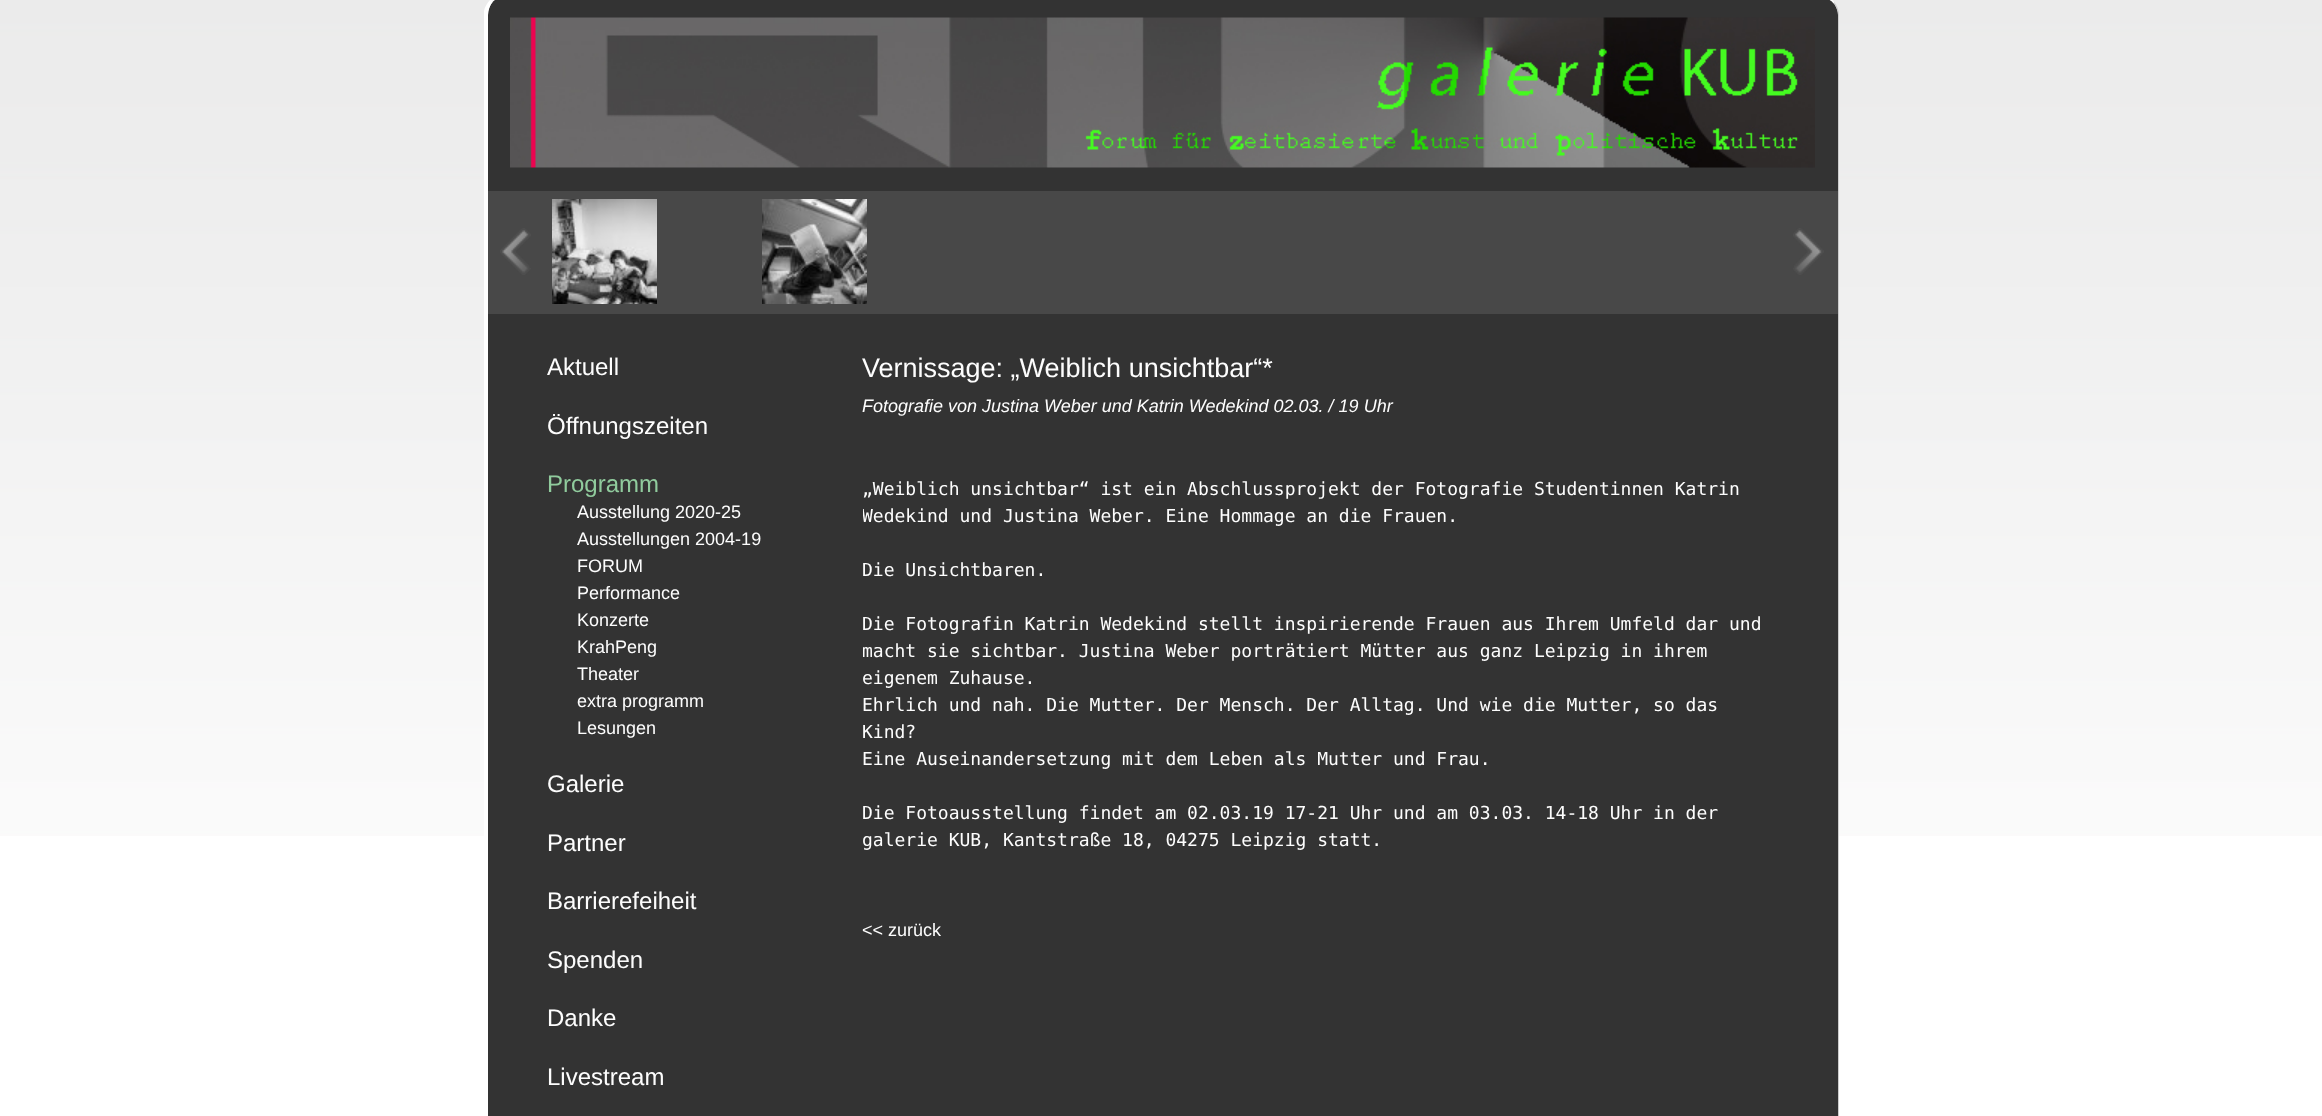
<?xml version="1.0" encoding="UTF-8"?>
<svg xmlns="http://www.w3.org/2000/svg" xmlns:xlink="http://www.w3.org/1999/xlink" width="2322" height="1116">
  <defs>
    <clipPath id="clip1"><rect x="863" y="458" width="900" height="414" /></clipPath>
  </defs>
  <rect width="100%" height="100%" fill="#ffffff" />
  <image x="0" y="0" width="2322" height="836" xlink:href="image1.png" />
  <path d="M 507 -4 h 1309 c 12 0 22 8 22 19 v 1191 c 0 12 -10 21 -22 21 h -1309 c -11 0 -19 -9 -19 -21 v -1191 c 0 -11 8 -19 19 -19 z" fill="#333333" />
  <path d="M 507 -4 c -5 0 -10 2 -14 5 l -2 -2 c 3 -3 7 -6 12 -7 h 1318 c 5 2 10 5 13 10 v 1 c -4 -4 -11 -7 -18 -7 z" fill="#ffffff" />
  <path d="M 1839 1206 v -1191 c 0 -5 -2 -10 -5 -13 v 1 c 2 4 4 8 4 12 v 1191 c 0 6 -2 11 -6 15 v 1 c 4 -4 7 -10 7 -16 z" fill="#cccccc" />
  <path d="M 484 11 c 1 -5 4 -9 7 -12 l 2 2 c -3 4 -5 9 -5 14 v 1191 c 0 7 3 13 7 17 l -1 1 c -5 -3 -8 -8 -10 -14 z" fill="#ffffff" />
  <image x="510" y="17" width="1305" height="151" xlink:href="image2.png" />
  <rect x="488" y="191" width="1350" height="123" fill="#484848" />
  <image x="500" y="228" width="31" height="47" xlink:href="image3.png" />
  <image x="552" y="199" width="105" height="105" xlink:href="image4.png" />
  <image x="762" y="199" width="105" height="105" xlink:href="image5.png" />
  <image x="1793" y="228" width="31" height="47" xlink:href="image6.png" />
  <text x="547" y="375" style="font-family: Liberation Sans; font-size: 24px; fill: #fdfdfd">Aktuell</text>
  <text x="547" y="434" style="font-family: Liberation Sans; font-size: 24px; fill: #fdfdfd">Öffnungszeiten</text>
  <text x="547" y="492" style="font-family: Liberation Sans; font-size: 24px; fill: #90cb9d">Programm</text>
  <text x="577" y="518" style="font-family: Liberation Sans; font-size: 18px; fill: #fdfdfd">Ausstellung 2020-25</text>
  <text x="577" y="545" style="font-family: Liberation Sans; font-size: 18px; fill: #fdfdfd">Ausstellungen 2004-19</text>
  <text x="577" y="572" style="font-family: Liberation Sans; font-size: 18px; fill: #fdfdfd">FORUM</text>
  <text x="577" y="599" style="font-family: Liberation Sans; font-size: 18px; fill: #fdfdfd">Performance</text>
  <text x="577" y="626" style="font-family: Liberation Sans; font-size: 18px; fill: #fdfdfd">Konzerte</text>
  <text x="577" y="653" style="font-family: Liberation Sans; font-size: 18px; fill: #fdfdfd">KrahPeng</text>
  <text x="577" y="680" style="font-family: Liberation Sans; font-size: 18px; fill: #fdfdfd">Theater</text>
  <text x="577" y="707" style="font-family: Liberation Sans; font-size: 18px; fill: #fdfdfd">extra programm</text>
  <text x="577" y="734" style="font-family: Liberation Sans; font-size: 18px; fill: #fdfdfd">Lesungen</text>
  <text x="547" y="792" style="font-family: Liberation Sans; font-size: 24px; fill: #fdfdfd">Galerie</text>
  <text x="547" y="851" style="font-family: Liberation Sans; font-size: 24px; fill: #fdfdfd">Partner</text>
  <text x="547" y="909" style="font-family: Liberation Sans; font-size: 24px; fill: #fdfdfd">Barrierefeiheit</text>
  <text x="547" y="968" style="font-family: Liberation Sans; font-size: 24px; fill: #fdfdfd">Spenden</text>
  <text x="547" y="1026" style="font-family: Liberation Sans; font-size: 24px; fill: #fdfdfd">Danke</text>
  <text x="547" y="1085" style="font-family: Liberation Sans; font-size: 24px; fill: #fdfdfd">Livestream</text>
  <text x="862" y="377" style="font-family: Liberation Sans; font-size: 27px; fill: #fdfdfd">Vernissage: „Weiblich unsichtbar“*</text>
  <text x="862" y="412" style="font-family: Liberation Sans; font-size: 18px; font-style: italic; fill: #fdfdfd">Fotografie von Justina Weber und Katrin Wedekind 02.03. / 19 Uhr</text>
  <text x="862" y="495" style="font-family: DejaVu Sans Mono; font-size: 18px; fill: #fdfdfd">„Weiblich unsichtbar“ ist ein Abschlussprojekt der Fotografie Studentinnen Katrin</text>
  <g clip-path="url(#clip1)">
    <text x="862" y="522" style="font-family: DejaVu Sans Mono; font-size: 18px; fill: #fdfdfd">Wedekind und Justina Weber. Eine Hommage an die Frauen.</text>
  </g>
  <text x="862" y="576" style="font-family: DejaVu Sans Mono; font-size: 18px; fill: #fdfdfd">Die Unsichtbaren.</text>
  <text x="862" y="630" style="font-family: DejaVu Sans Mono; font-size: 18px; fill: #fdfdfd">Die Fotografin Katrin Wedekind stellt inspirierende Frauen aus Ihrem Umfeld dar und</text>
  <g clip-path="url(#clip1)">
    <text x="862" y="657" style="font-family: DejaVu Sans Mono; font-size: 18px; fill: #fdfdfd">macht sie sichtbar. Justina Weber porträtiert Mütter aus ganz Leipzig in ihrem</text>
  </g>
  <text x="862" y="684" style="font-family: DejaVu Sans Mono; font-size: 18px; fill: #fdfdfd">eigenem Zuhause.</text>
  <text x="862" y="711" style="font-family: DejaVu Sans Mono; font-size: 18px; fill: #fdfdfd">Ehrlich und nah. Die Mutter. Der Mensch. Der Alltag. Und wie die Mutter, so das</text>
  <text x="862" y="738" style="font-family: DejaVu Sans Mono; font-size: 18px; fill: #fdfdfd">Kind?</text>
  <text x="862" y="765" style="font-family: DejaVu Sans Mono; font-size: 18px; fill: #fdfdfd">Eine Auseinandersetzung mit dem Leben als Mutter und Frau.</text>
  <text x="862" y="819" style="font-family: DejaVu Sans Mono; font-size: 18px; fill: #fdfdfd">Die Fotoausstellung findet am 02.03.19 17-21 Uhr und am 03.03. 14-18 Uhr in der</text>
  <text x="862" y="846" style="font-family: DejaVu Sans Mono; font-size: 18px; fill: #fdfdfd">galerie KUB, Kantstraße 18, 04275 Leipzig statt.</text>
  <text x="862" y="936" style="font-family: Liberation Sans; font-size: 18px; fill: #fdfdfd">&lt;&lt; zurück</text>
</svg>
